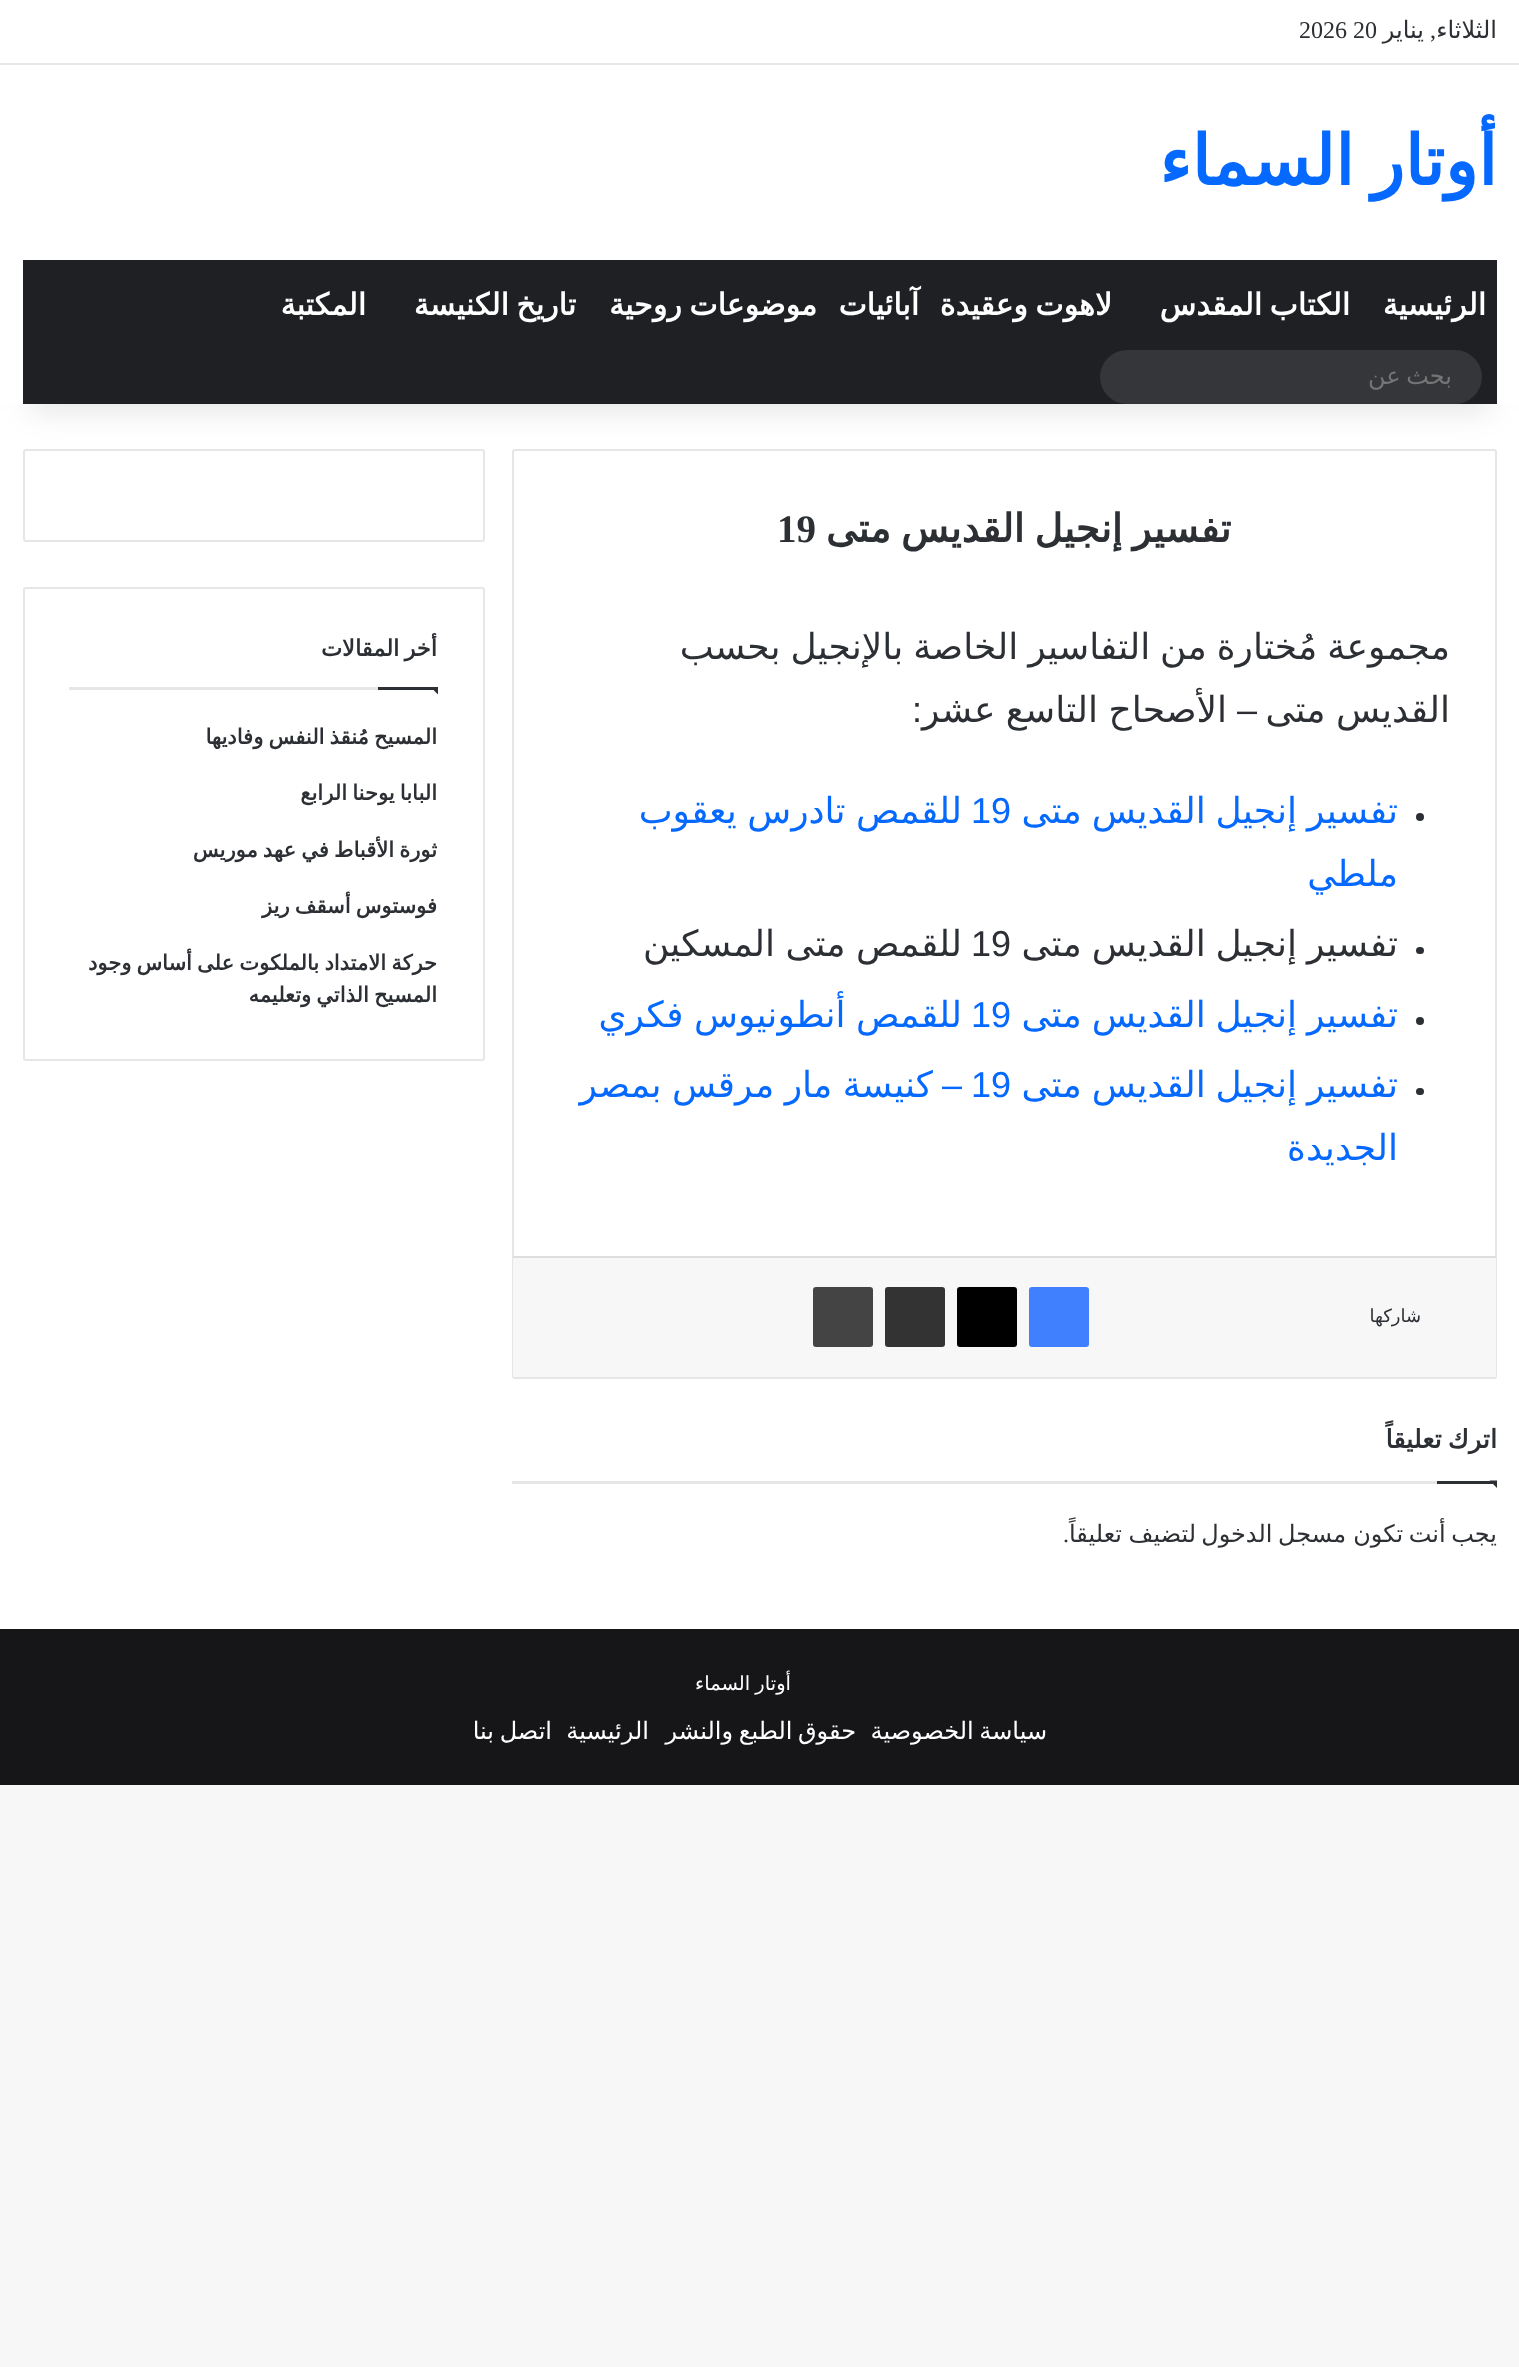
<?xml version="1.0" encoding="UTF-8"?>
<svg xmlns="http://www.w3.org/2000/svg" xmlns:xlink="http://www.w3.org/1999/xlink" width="1519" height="2367">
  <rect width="100%" height="100%" fill="#f7f7f7" />
  <rect y="404" width="1519" height="1225" fill="#ffffff" />
  <rect x="513" y="450" width="983" height="928" rx="2" fill="none" stroke="#e6e6e6" stroke-width="2" />
  <rect x="24" y="450" width="460" height="91" rx="2" fill="none" stroke="#e6e6e6" stroke-width="2" />
  <rect x="30" y="68" width="1460" height="343" fill="#000000" fill-opacity="0.1" filter="blur(15px)" />
  <rect width="1519" height="404" fill="#ffffff" />
  <rect y="63" width="1519" height="2" fill="#e6e6e6" />
  <rect x="23" y="260" width="1474" height="144" fill="#1f2024" />
  <rect x="1100" y="350" width="382" height="54" rx="27" fill="#35363a" />
  <circle cx="1420" cy="817" r="4" fill="#2c2f34" />
  <rect x="1416" y="947" width="8" height="7" rx="3.5" fill="#2c2f34" />
  <circle cx="1420" cy="1021" r="4" fill="#2c2f34" />
  <rect x="1416" y="1088" width="8" height="7" rx="3.5" fill="#2c2f34" />
  <rect x="513" y="1258" width="983" height="119" fill="#f7f7f7" />
  <rect x="513" y="1256" width="983" height="2" fill="#dedede" />
  <rect x="1029" y="1287" width="60" height="60" rx="3" fill="#4080ff" />
  <rect x="957" y="1287" width="60" height="60" rx="3" fill="#000000" />
  <rect x="885" y="1287" width="60" height="60" rx="3" fill="#333333" />
  <rect x="813" y="1287" width="60" height="60" rx="3" fill="#444444" />
  <rect x="512" y="1481" width="925" height="3" fill="#e6e6e6" />
  <path d="M 1489.5 1480.5 h 7.5 v 7.5 z" fill="#2c2f34" />
  <rect x="1437" y="1481" width="60" height="3" fill="#2c2f34" />
  <rect x="24" y="588" width="460" height="472" rx="2" fill="none" stroke="#e6e6e6" stroke-width="2" />
  <rect x="69" y="687" width="309" height="3" fill="#e6e6e6" />
  <path d="M 430.5 687 h 7.5 v 7.5 z" fill="#2c2f34" />
  <rect x="378" y="687" width="60" height="3" fill="#2c2f34" />
  <rect y="1629" width="1519" height="156" fill="#161619" />
  <text x="1497" y="38" style="font-family: DejaVu Sans; font-size: 24px; direction: rtl; fill: #2c2f34">الثلاثاء</text>
  <text x="1436" y="38" style="font-family: Liberation Serif; font-size: 24px; direction: rtl; fill: #2c2f34">,</text>
  <text x="1424" y="38" style="font-family: DejaVu Sans; font-size: 24px; direction: rtl; fill: #2c2f34">يناير</text>
  <text x="1299" y="38" style="font-family: Liberation Serif; font-size: 24px; fill: #2c2f34">2026 20</text>
  <text x="1497" y="185" word-spacing="-5" style="font-family: DejaVu Sans; font-size: 69px; font-weight: bold; direction: rtl; fill: #0669ff">أوتار السماء</text>
  <text x="1486" y="315" style="font-family: DejaVu Sans; font-size: 30px; font-weight: bold; direction: rtl; fill: #ffffff">الرئيسية</text>
  <text x="1350" y="315" word-spacing="-2" style="font-family: DejaVu Sans; font-size: 30px; font-weight: bold; direction: rtl; fill: #ffffff">الكتاب المقدس</text>
  <text x="1112" y="315" word-spacing="-2" style="font-family: DejaVu Sans; font-size: 30px; font-weight: bold; direction: rtl; fill: #ffffff">لاهوت وعقيدة</text>
  <text x="919" y="315" style="font-family: DejaVu Sans; font-size: 30px; font-weight: bold; direction: rtl; fill: #ffffff">آبائيات</text>
  <text x="817" y="315" word-spacing="-2" style="font-family: DejaVu Sans; font-size: 30px; font-weight: bold; direction: rtl; fill: #ffffff">موضوعات روحية</text>
  <text x="576" y="315" word-spacing="-2" style="font-family: DejaVu Sans; font-size: 30px; font-weight: bold; direction: rtl; fill: #ffffff">تاريخ الكنيسة</text>
  <text x="366" y="315" style="font-family: DejaVu Sans; font-size: 30px; font-weight: bold; direction: rtl; fill: #ffffff">المكتبة</text>
  <text x="1452" y="384" word-spacing="-2" style="font-family: DejaVu Sans; font-size: 24px; direction: rtl; fill: #757575">بحث عن</text>
  <text x="1231" y="542" word-spacing="-2.5" style="font-family: DejaVu Sans; font-size: 39px; font-weight: bold; direction: rtl; fill: #2c2f34">تفسير إنجيل القديس متى</text>
  <text x="777" y="542" style="font-family: Liberation Serif; font-size: 39px; font-weight: bold; fill: #2c2f34">19</text>
  <text x="1450" y="659" word-spacing="-1.5" style="font-family: DejaVu Sans; font-size: 36px; direction: rtl; fill: #2c2f34">مجموعة مُختارة من التفاسير الخاصة بالإنجيل بحسب</text>
  <text x="1450" y="722" word-spacing="-1" style="font-family: DejaVu Sans; font-size: 36px; direction: rtl; fill: #2c2f34">القديس متى</text>
  <text x="1257" y="722" style="font-family: Liberation Sans; font-size: 36px; direction: rtl; fill: #2c2f34">–</text>
  <text x="1227" y="722" word-spacing="-1" style="font-family: DejaVu Sans; font-size: 36px; direction: rtl; fill: #2c2f34">الأصحاح التاسع عشر</text>
  <text x="922" y="722" style="font-family: Liberation Sans; font-size: 36px; direction: rtl; fill: #2c2f34">:</text>
  <text x="1398" y="823" word-spacing="-1.5" style="font-family: DejaVu Sans; font-size: 36px; direction: rtl; fill: #0669ff">تفسير إنجيل القديس متى</text>
  <text x="971" y="823" style="font-family: Liberation Sans; font-size: 36px; fill: #0669ff">19</text>
  <text x="962" y="823" word-spacing="-1" style="font-family: DejaVu Sans; font-size: 36px; direction: rtl; fill: #0669ff">للقمص تادرس يعقوب</text>
  <text x="1398" y="886" style="font-family: DejaVu Sans; font-size: 36px; direction: rtl; fill: #0669ff">ملطي</text>
  <text x="1398" y="956" word-spacing="-1.5" style="font-family: DejaVu Sans; font-size: 36px; direction: rtl; fill: #2c2f34">تفسير إنجيل القديس متى</text>
  <text x="971" y="956" style="font-family: Liberation Sans; font-size: 36px; fill: #2c2f34">19</text>
  <text x="962" y="956" word-spacing="-1" style="font-family: DejaVu Sans; font-size: 36px; direction: rtl; fill: #2c2f34">للقمص متى المسكين</text>
  <text x="1398" y="1027" word-spacing="-1.5" style="font-family: DejaVu Sans; font-size: 36px; direction: rtl; fill: #0669ff">تفسير إنجيل القديس متى</text>
  <text x="971" y="1027" style="font-family: Liberation Sans; font-size: 36px; fill: #0669ff">19</text>
  <text x="962" y="1027" word-spacing="-1" style="font-family: DejaVu Sans; font-size: 36px; direction: rtl; fill: #0669ff">للقمص أنطونيوس فكري</text>
  <text x="1398" y="1097" word-spacing="-1.5" style="font-family: DejaVu Sans; font-size: 36px; direction: rtl; fill: #0669ff">تفسير إنجيل القديس متى</text>
  <text x="971" y="1097" style="font-family: Liberation Sans; font-size: 36px; fill: #0669ff">19</text>
  <text x="962" y="1097" style="font-family: Liberation Sans; font-size: 36px; direction: rtl; fill: #0669ff">–</text>
  <text x="933" y="1097" word-spacing="-1" style="font-family: DejaVu Sans; font-size: 36px; direction: rtl; fill: #0669ff">كنيسة مار مرقس بمصر</text>
  <text x="1398" y="1160" style="font-family: DejaVu Sans; font-size: 36px; direction: rtl; fill: #0669ff">الجديدة</text>
  <text x="1421" y="1322" style="font-family: DejaVu Sans; font-size: 18px; direction: rtl; fill: #2c2f34">شاركها</text>
  <text x="1497" y="1448" word-spacing="-2" style="font-family: DejaVu Sans; font-size: 25.5px; font-weight: bold; direction: rtl; fill: #2c2f34">اترك تعليقاً</text>
  <text x="1497" y="1542" word-spacing="-2" style="font-family: DejaVu Sans; font-size: 24px; direction: rtl; fill: #2c2f34">يجب أنت تكون</text>
  <text x="1346" y="1542" word-spacing="-2" style="font-family: DejaVu Sans; font-size: 24px; direction: rtl; fill: #2c2f34">مسجل الدخول</text>
  <text x="1196" y="1542" word-spacing="-1" style="font-family: DejaVu Sans; font-size: 24px; direction: rtl; fill: #2c2f34">لتضيف تعليقاً</text>
  <text x="1069" y="1542" style="font-family: Liberation Serif; font-size: 24px; direction: rtl; fill: #2c2f34">.</text>
  <text x="437" y="656" word-spacing="-2" style="font-family: DejaVu Sans; font-size: 22.5px; font-weight: bold; direction: rtl; fill: #2c2f34">أخر المقالات</text>
  <text x="437" y="744" word-spacing="-1.5" style="font-family: DejaVu Sans; font-size: 21px; font-weight: bold; direction: rtl; fill: #2c2f34">المسيح مُنقذ النفس وفاديها</text>
  <text x="437" y="800" word-spacing="-1.5" style="font-family: DejaVu Sans; font-size: 21px; font-weight: bold; direction: rtl; fill: #2c2f34">البابا يوحنا الرابع</text>
  <text x="437" y="857" word-spacing="-1.5" style="font-family: DejaVu Sans; font-size: 21px; font-weight: bold; direction: rtl; fill: #2c2f34">ثورة الأقباط في عهد موريس</text>
  <text x="437" y="913" word-spacing="-1.5" style="font-family: DejaVu Sans; font-size: 21px; font-weight: bold; direction: rtl; fill: #2c2f34">فوستوس أسقف ريز</text>
  <text x="437" y="970" word-spacing="-1.5" style="font-family: DejaVu Sans; font-size: 21px; font-weight: bold; direction: rtl; fill: #2c2f34">حركة الامتداد بالملكوت على أساس وجود</text>
  <text x="437" y="1002" word-spacing="-1.5" style="font-family: DejaVu Sans; font-size: 21px; font-weight: bold; direction: rtl; fill: #2c2f34">المسيح الذاتي وتعليمه</text>
  <text x="791" y="1690" word-spacing="-1" style="font-family: DejaVu Sans; font-size: 19.5px; direction: rtl; fill: #ffffff">أوتار السماء</text>
  <text x="1047" y="1739" word-spacing="-2" style="font-family: DejaVu Sans; font-size: 24px; direction: rtl; fill: #ffffff">سياسة الخصوصية</text>
  <text x="856" y="1739" word-spacing="-2" style="font-family: DejaVu Sans; font-size: 24px; direction: rtl; fill: #ffffff">حقوق الطبع والنشر</text>
  <text x="649" y="1739" style="font-family: DejaVu Sans; font-size: 24px; direction: rtl; fill: #ffffff">الرئيسية</text>
  <text x="552" y="1739" word-spacing="-2" style="font-family: DejaVu Sans; font-size: 24px; direction: rtl; fill: #ffffff">اتصل بنا</text>
</svg>
